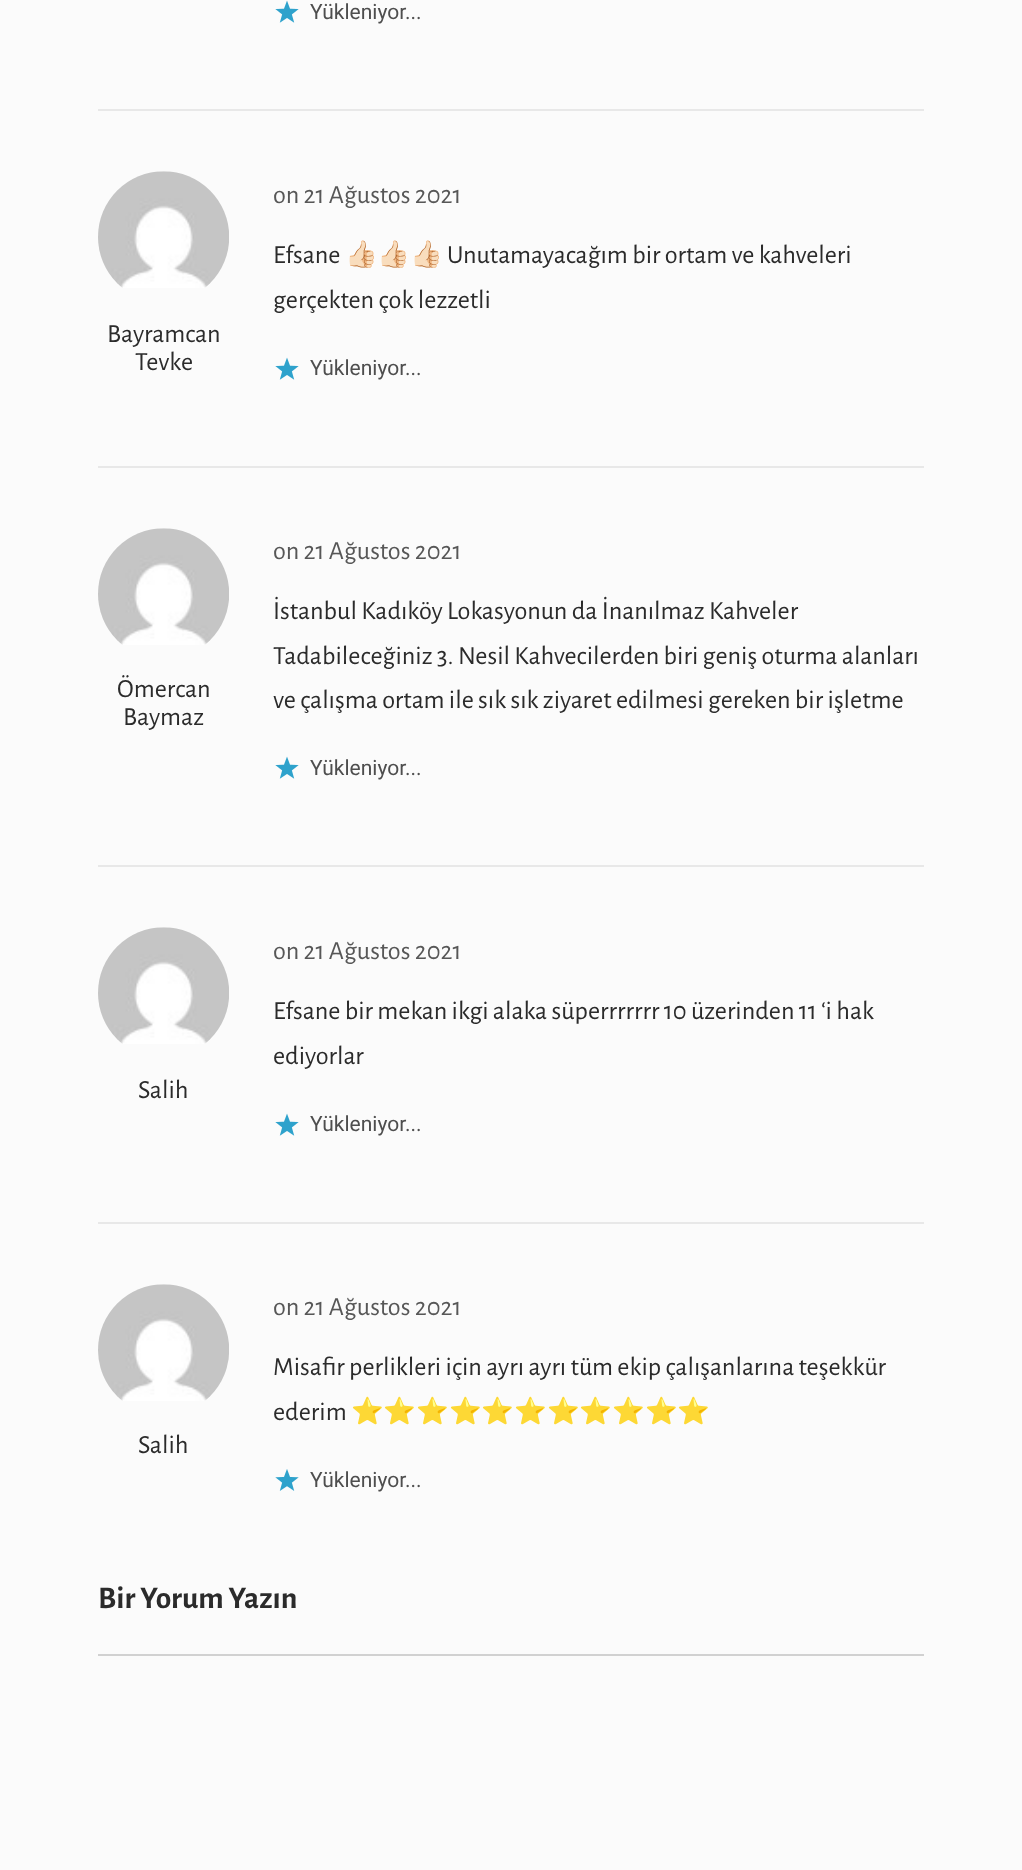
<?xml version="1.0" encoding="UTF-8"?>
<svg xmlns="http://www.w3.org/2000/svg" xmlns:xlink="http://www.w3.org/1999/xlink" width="1022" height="1870">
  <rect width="100%" height="100%" fill="#fbfbfb" />
  <image x="275" y="0" width="24" height="23" xlink:href="image1.png" />
  <rect x="98" y="109" width="826" height="2" fill="#e8e8e8" />
  <image x="98" y="171" width="131" height="117" xlink:href="image2.png" />
  <image x="275" y="357" width="24" height="23" xlink:href="image1.png" />
  <rect x="98" y="466" width="826" height="2" fill="#e8e8e8" />
  <image x="98" y="528" width="131" height="117" xlink:href="image3.png" />
  <image x="275" y="756" width="24" height="23" xlink:href="image1.png" />
  <rect x="98" y="865" width="826" height="2" fill="#e8e8e8" />
  <image x="98" y="927" width="131" height="117" xlink:href="image4.png" />
  <image x="275" y="1113" width="24" height="23" xlink:href="image1.png" />
  <rect x="98" y="1222" width="826" height="2" fill="#e8e8e8" />
  <image x="98" y="1284" width="131" height="117" xlink:href="image5.png" />
  <image x="275" y="1469" width="24" height="22" xlink:href="image6.png" />
  <rect x="98" y="1654" width="826" height="2" fill="#d1d1d1" />
  <text x="310" y="19" style="font-family: Roboto; font-size: 21px; fill: #4e4e4e">Yükleniyor...</text>
  <text x="107" y="342" style="font-family: Alegreya Sans; font-size: 26.25px; fill: #2b2b2b">Bayramcan</text>
  <text x="135" y="370" style="font-family: Alegreya Sans; font-size: 26.25px; fill: #2b2b2b">Tevke</text>
  <text x="273" y="203" style="font-family: Alegreya Sans; font-size: 26.25px; fill: #575757">on 21 Ağustos 2021</text>
  <text x="273" y="263" style="font-family: Alegreya Sans; font-size: 26.25px; fill: #2b2b2b">Efsane</text>
  <text x="345" y="263" style="font-family: Noto Color Emoji; font-size: 26.25px; fill: #2b2b2b">👍🏻👍🏻👍🏻</text>
  <text x="447" y="263" style="font-family: Alegreya Sans; font-size: 26.25px; fill: #2b2b2b">Unutamayacağım bir ortam ve kahveleri</text>
  <text x="273" y="308" style="font-family: Alegreya Sans; font-size: 26.25px; fill: #2b2b2b">gerçekten çok lezzetli</text>
  <text x="310" y="375" style="font-family: Roboto; font-size: 21px; fill: #4e4e4e">Yükleniyor...</text>
  <text x="117" y="697" style="font-family: Alegreya Sans; font-size: 26.25px; fill: #2b2b2b">Ömercan</text>
  <text x="123" y="725" style="font-family: Alegreya Sans; font-size: 26.25px; fill: #2b2b2b">Baymaz</text>
  <text x="273" y="559" style="font-family: Alegreya Sans; font-size: 26.25px; fill: #575757">on 21 Ağustos 2021</text>
  <text x="273" y="619" style="font-family: Alegreya Sans; font-size: 26.25px; fill: #2b2b2b">İstanbul Kadıköy Lokasyonun da İnanılmaz Kahveler</text>
  <text x="273" y="664" style="font-family: Alegreya Sans; font-size: 26.25px; fill: #2b2b2b">Tadabileceğiniz 3. Nesil Kahvecilerden biri geniş oturma alanları</text>
  <text x="273" y="708" style="font-family: Alegreya Sans; font-size: 26.25px; fill: #2b2b2b">ve çalışma ortam ile sık sık ziyaret edilmesi gereken bir işletme</text>
  <text x="310" y="775" style="font-family: Roboto; font-size: 21px; fill: #4e4e4e">Yükleniyor...</text>
  <text x="138" y="1098" style="font-family: Alegreya Sans; font-size: 26.25px; fill: #2b2b2b">Salih</text>
  <text x="273" y="959" style="font-family: Alegreya Sans; font-size: 26.25px; fill: #575757">on 21 Ağustos 2021</text>
  <text x="273" y="1019" style="font-family: Alegreya Sans; font-size: 26.25px; fill: #2b2b2b">Efsane bir mekan ikgi alaka süperrrrrrr 10 üzerinden 11 ‘i hak</text>
  <text x="273" y="1064" style="font-family: Alegreya Sans; font-size: 26.25px; fill: #2b2b2b">ediyorlar</text>
  <text x="310" y="1131" style="font-family: Roboto; font-size: 21px; fill: #4e4e4e">Yükleniyor...</text>
  <text x="138" y="1453" style="font-family: Alegreya Sans; font-size: 26.25px; fill: #2b2b2b">Salih</text>
  <text x="273" y="1315" style="font-family: Alegreya Sans; font-size: 26.25px; fill: #575757">on 21 Ağustos 2021</text>
  <text x="273" y="1375" style="font-family: Alegreya Sans; font-size: 26.25px; fill: #2b2b2b">Misafir perlikleri için ayrı ayrı tüm ekip çalışanlarına teşekkür</text>
  <text x="273" y="1420" style="font-family: Alegreya Sans; font-size: 26.25px; fill: #2b2b2b">ederim</text>
  <text x="351" y="1420" style="font-family: Noto Color Emoji; font-size: 26.25px; fill: #2b2b2b">⭐⭐⭐⭐⭐⭐⭐⭐⭐⭐⭐</text>
  <text x="310" y="1487" style="font-family: Roboto; font-size: 21px; fill: #4e4e4e">Yükleniyor...</text>
  <text x="98" y="1608" style="font-family: Alegreya Sans; font-size: 31.5px; font-weight: bold; fill: #2b2b2b">Bir Yorum Yazın</text>
</svg>
